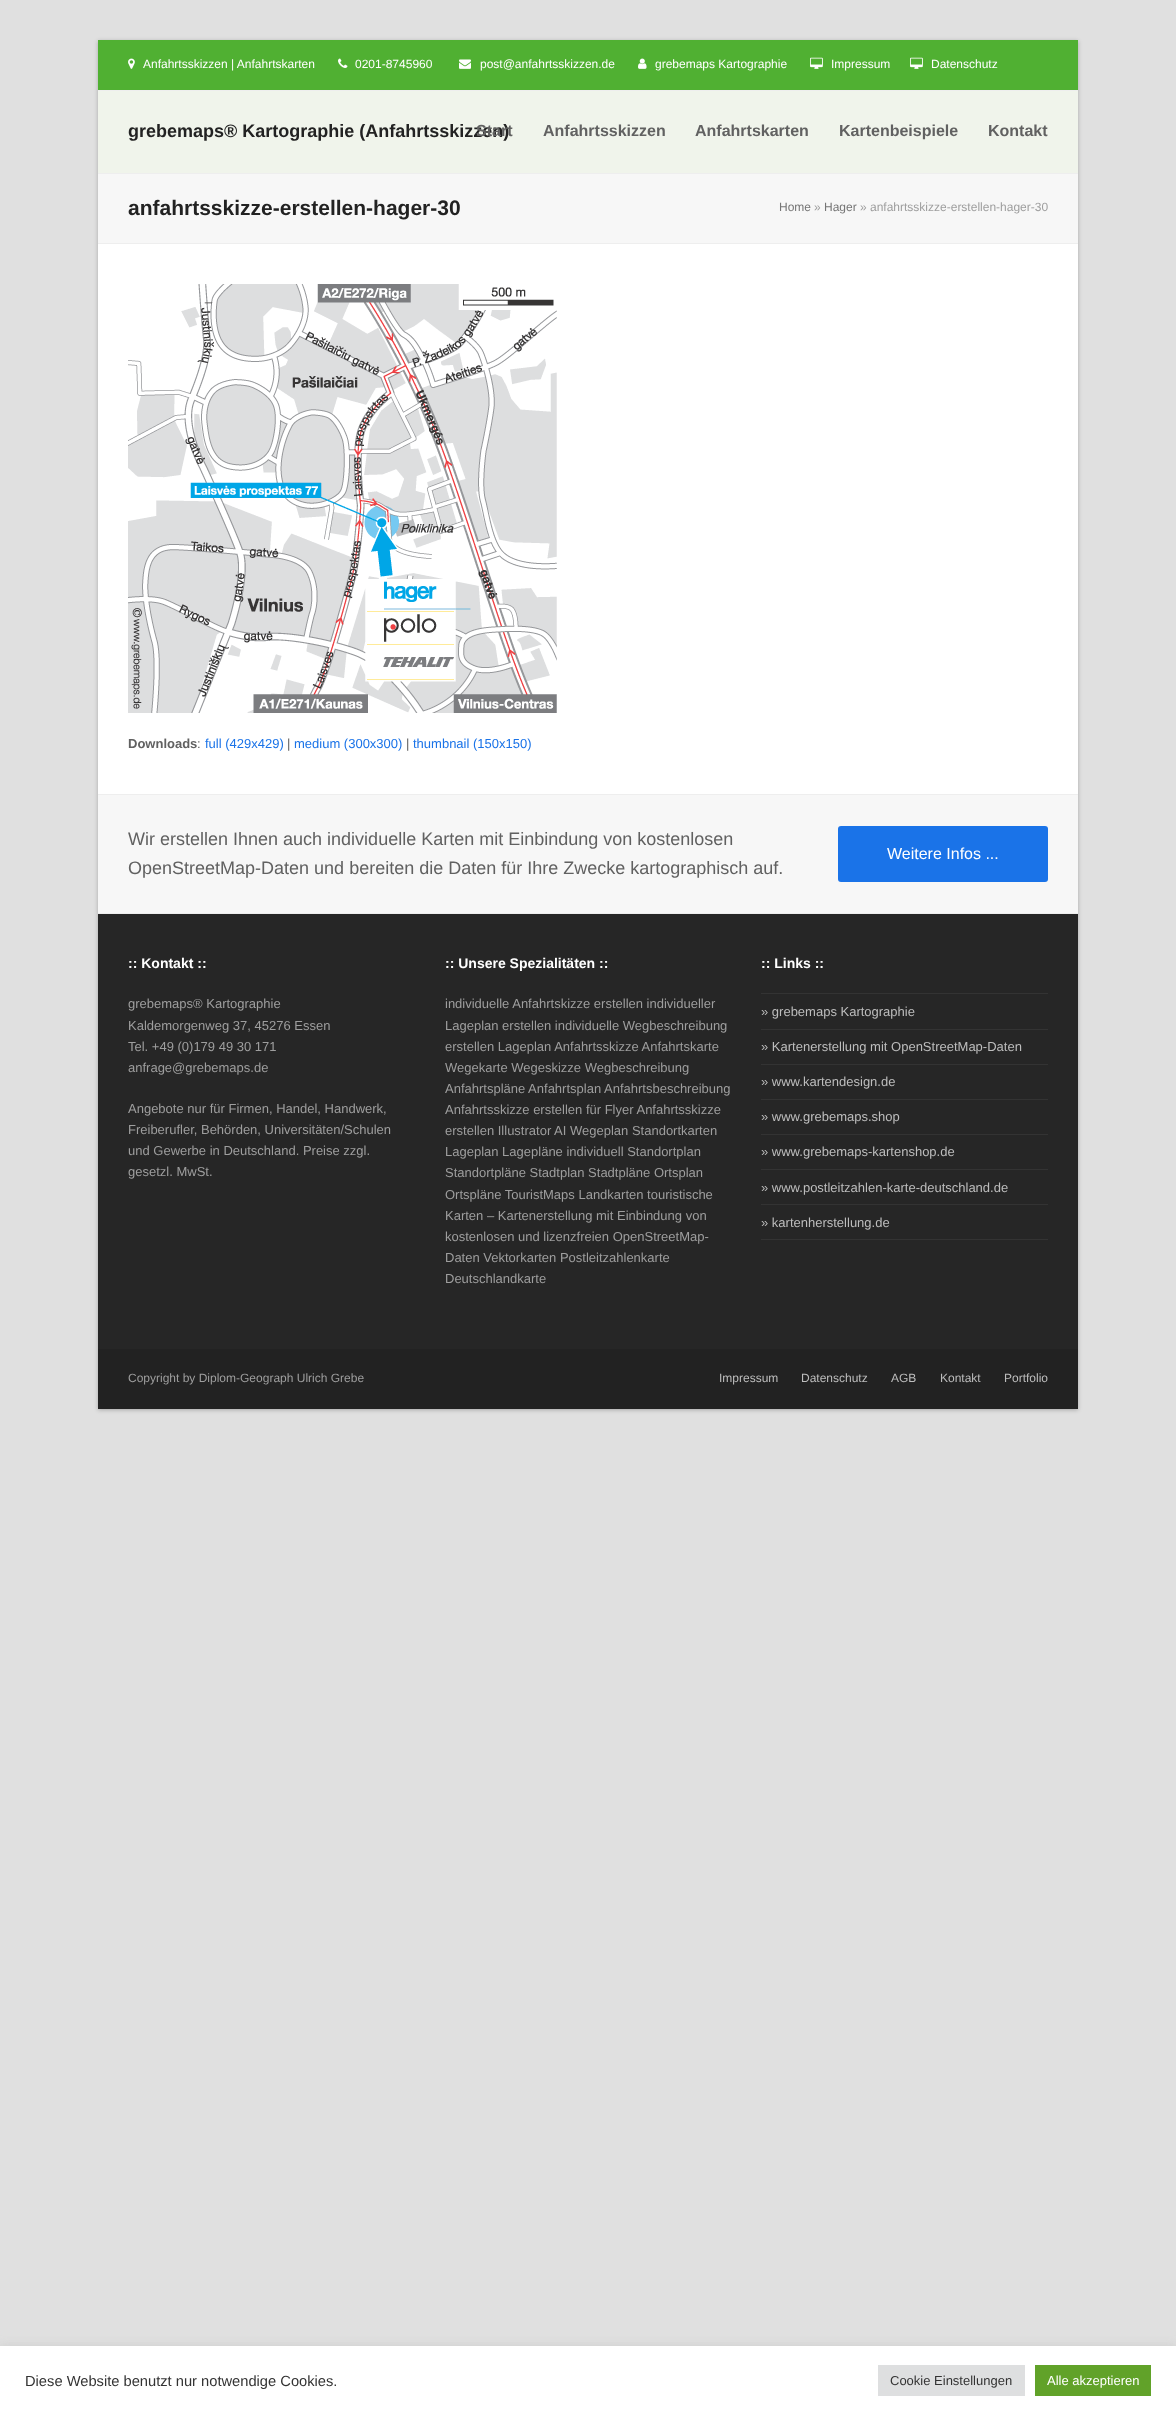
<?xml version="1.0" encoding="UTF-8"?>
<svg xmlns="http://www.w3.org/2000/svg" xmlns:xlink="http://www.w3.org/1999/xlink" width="1176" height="2415">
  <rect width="100%" height="100%" fill="#e0e0e0" />
  <rect x="98" y="41" width="980" height="1369" fill="#000000" fill-opacity="0.25" filter="blur(2px)" />
  <rect x="98" y="244" width="980" height="550" fill="#ffffff" />
  <rect x="98" y="40" width="980" height="50" fill="#50b032" />
  <rect x="98" y="90" width="980" height="1" fill="#eeeeee" />
  <image x="128" y="58" width="7" height="11" xlink:href="image1.png" />
  <image x="338" y="58" width="10" height="10" xlink:href="image2.png" />
  <image x="459" y="59" width="12" height="10" xlink:href="image3.png" />
  <image x="638" y="58" width="9" height="11" xlink:href="image4.png" />
  <image x="810" y="57" width="13" height="12" xlink:href="image5.png" />
  <image x="910" y="57" width="13" height="12" xlink:href="image5.png" />
  <rect x="98" y="91" width="980" height="82" fill="#f0f4eb" />
  <rect x="98" y="174" width="980" height="69" fill="#f7f7f7" />
  <rect x="98" y="173" width="980" height="1" fill="#eeeeee" />
  <rect x="98" y="243" width="980" height="1" fill="#eeeeee" />
  <image x="128" y="284" width="429" height="429" xlink:href="image6.png" />
  <rect x="98" y="795" width="980" height="118" fill="#f7f7f7" />
  <rect x="98" y="794" width="980" height="1" fill="#eeeeee" />
  <rect x="98" y="913" width="980" height="1" fill="#eeeeee" />
  <rect x="838" y="826" width="210" height="56" rx="3" fill="#1a73e8" />
  <rect x="98" y="914" width="980" height="435" fill="#262626" />
  <rect x="761" y="993" width="287" height="1" fill="#333333" />
  <rect x="761" y="1029" width="287" height="1" fill="#333333" />
  <rect x="761" y="1064" width="287" height="1" fill="#333333" />
  <rect x="761" y="1099" width="287" height="1" fill="#333333" />
  <rect x="761" y="1134" width="287" height="1" fill="#333333" />
  <rect x="761" y="1169" width="287" height="1" fill="#333333" />
  <rect x="761" y="1204" width="287" height="1" fill="#333333" />
  <rect x="761" y="1239" width="287" height="1" fill="#333333" />
  <rect x="98" y="1349" width="980" height="60" fill="#222222" />
  <rect y="2345" width="1176" height="69" fill="#acabab" fill-opacity="0.3" filter="blur(5px)" />
  <rect y="2346" width="1176" height="69" fill="#ffffff" />
  <rect x="878" y="2365" width="147" height="31" fill="#dedfe0" />
  <rect x="1035" y="2365" width="116" height="31" fill="#61a229" />
  <text x="143" y="68" style="font-family: Liberation Sans; font-size: 12px; fill: #ffffff">Anfahrtsskizzen | Anfahrtskarten</text>
  <text x="355" y="68" style="font-family: Liberation Sans; font-size: 12px; fill: #ffffff">0201-8745960</text>
  <text x="480" y="68" style="font-family: Liberation Sans; font-size: 12px; fill: #ffffff">post@anfahrtsskizzen.de</text>
  <text x="655" y="68" style="font-family: Liberation Sans; font-size: 12px; fill: #ffffff">grebemaps Kartographie</text>
  <text x="831" y="68" style="font-family: Liberation Sans; font-size: 12px; fill: #ffffff">Impressum</text>
  <text x="931" y="68" style="font-family: Liberation Sans; font-size: 12px; fill: #ffffff">Datenschutz</text>
  <text x="128" y="137" style="font-family: Liberation Sans; font-size: 18px; font-weight: bold; fill: #222222">grebemaps® Kartographie (Anfahrtsskizzen)</text>
  <text x="476" y="136" style="font-family: Liberation Sans; font-size: 16px; font-weight: bold; fill: #616161">Start</text>
  <text x="543" y="136" style="font-family: Liberation Sans; font-size: 16px; font-weight: bold; fill: #616161">Anfahrtsskizzen</text>
  <text x="695" y="136" style="font-family: Liberation Sans; font-size: 16px; font-weight: bold; fill: #616161">Anfahrtskarten</text>
  <text x="839" y="136" style="font-family: Liberation Sans; font-size: 16px; font-weight: bold; fill: #616161">Kartenbeispiele</text>
  <text x="988" y="136" style="font-family: Liberation Sans; font-size: 16px; font-weight: bold; fill: #616161">Kontakt</text>
  <text x="128" y="215" style="font-family: Liberation Sans; font-size: 21px; font-weight: bold; fill: #222222">anfahrtsskizze-erstellen-hager-30</text>
  <text x="779" y="211" style="font-family: Liberation Sans; font-size: 12px; fill: #757575">Home</text>
  <text x="814" y="211" style="font-family: Liberation Sans; font-size: 12px; fill: #9e9e9e">»</text>
  <text x="824" y="211" style="font-family: Liberation Sans; font-size: 12px; fill: #757575">Hager</text>
  <text x="860" y="211" style="font-family: Liberation Sans; font-size: 12px; fill: #9e9e9e">» anfahrtsskizze-erstellen-hager-30</text>
  <text x="128" y="748" style="font-family: Liberation Sans; font-size: 13px; font-weight: bold; fill: #616161">Downloads</text>
  <text x="197" y="748" style="font-family: Liberation Sans; font-size: 13px; fill: #616161">:</text>
  <text x="205" y="748" style="font-family: Liberation Sans; font-size: 13px; fill: #1a73e8">full (429x429)</text>
  <text x="287" y="748" style="font-family: Liberation Sans; font-size: 13px; fill: #616161">|</text>
  <text x="294" y="748" style="font-family: Liberation Sans; font-size: 13px; fill: #1a73e8">medium (300x300)</text>
  <text x="406" y="748" style="font-family: Liberation Sans; font-size: 13px; fill: #616161">|</text>
  <text x="413" y="748" style="font-family: Liberation Sans; font-size: 13px; fill: #1a73e8">thumbnail (150x150)</text>
  <text x="128" y="845" style="font-family: Liberation Sans; font-size: 18px; fill: #616161">Wir erstellen Ihnen auch individuelle Karten mit Einbindung von kostenlosen</text>
  <text x="128" y="874" style="font-family: Liberation Sans; font-size: 18px; fill: #616161">OpenStreetMap-Daten und bereiten die Daten für Ihre Zwecke kartographisch auf.</text>
  <text x="887" y="859" style="font-family: Liberation Sans; font-size: 16px; fill: #ffffff">Weitere Infos ...</text>
  <text x="128" y="968" style="font-family: Liberation Sans; font-size: 14px; font-weight: bold; fill: #ffffff">:: Kontakt ::</text>
  <text x="128" y="1008" style="font-family: Liberation Sans; font-size: 13px; fill: #9e9e9e">grebemaps® Kartographie</text>
  <text x="128" y="1030" style="font-family: Liberation Sans; font-size: 13px; fill: #9e9e9e">Kaldemorgenweg 37, 45276 Essen</text>
  <text x="128" y="1051" style="font-family: Liberation Sans; font-size: 13px; fill: #9e9e9e">Tel. +49 (0)179 49 30 171</text>
  <text x="128" y="1072" style="font-family: Liberation Sans; font-size: 13px; fill: #9e9e9e">anfrage@grebemaps.de</text>
  <text x="128" y="1113" style="font-family: Liberation Sans; font-size: 13px; fill: #9e9e9e">Angebote nur für Firmen, Handel, Handwerk,</text>
  <text x="128" y="1134" style="font-family: Liberation Sans; font-size: 13px; fill: #9e9e9e">Freiberufler, Behörden, Universitäten/Schulen</text>
  <text x="128" y="1155" style="font-family: Liberation Sans; font-size: 13px; fill: #9e9e9e">und Gewerbe in Deutschland. Preise zzgl.</text>
  <text x="128" y="1176" style="font-family: Liberation Sans; font-size: 13px; fill: #9e9e9e">gesetzl. MwSt.</text>
  <text x="445" y="968" style="font-family: Liberation Sans; font-size: 14px; font-weight: bold; fill: #ffffff">:: Unsere Spezialitäten ::</text>
  <text x="445" y="1008" style="font-family: Liberation Sans; font-size: 13px; fill: #9e9e9e">individuelle Anfahrtskizze erstellen individueller</text>
  <text x="445" y="1030" style="font-family: Liberation Sans; font-size: 13px; fill: #9e9e9e">Lageplan erstellen individuelle Wegbeschreibung</text>
  <text x="445" y="1051" style="font-family: Liberation Sans; font-size: 13px; fill: #9e9e9e">erstellen Lageplan Anfahrtsskizze Anfahrtskarte</text>
  <text x="445" y="1072" style="font-family: Liberation Sans; font-size: 13px; fill: #9e9e9e">Wegekarte Wegeskizze Wegbeschreibung</text>
  <text x="445" y="1093" style="font-family: Liberation Sans; font-size: 13px; fill: #9e9e9e">Anfahrtspläne Anfahrtsplan Anfahrtsbeschreibung</text>
  <text x="445" y="1114" style="font-family: Liberation Sans; font-size: 13px; fill: #9e9e9e">Anfahrtsskizze erstellen für Flyer Anfahrtsskizze</text>
  <text x="445" y="1135" style="font-family: Liberation Sans; font-size: 13px; fill: #9e9e9e">erstellen Illustrator AI Wegeplan Standortkarten</text>
  <text x="445" y="1156" style="font-family: Liberation Sans; font-size: 13px; fill: #9e9e9e">Lageplan Lagepläne individuell Standortplan</text>
  <text x="445" y="1177" style="font-family: Liberation Sans; font-size: 13px; fill: #9e9e9e">Standortpläne Stadtplan Stadtpläne Ortsplan</text>
  <text x="445" y="1199" style="font-family: Liberation Sans; font-size: 13px; fill: #9e9e9e">Ortspläne TouristMaps Landkarten touristische</text>
  <text x="445" y="1220" style="font-family: Liberation Sans; font-size: 13px; fill: #9e9e9e">Karten – Kartenerstellung mit Einbindung von</text>
  <text x="445" y="1241" style="font-family: Liberation Sans; font-size: 13px; fill: #9e9e9e">kostenlosen und lizenzfreien OpenStreetMap-</text>
  <text x="445" y="1262" style="font-family: Liberation Sans; font-size: 13px; fill: #9e9e9e">Daten Vektorkarten Postleitzahlenkarte</text>
  <text x="445" y="1283" style="font-family: Liberation Sans; font-size: 13px; fill: #9e9e9e">Deutschlandkarte</text>
  <text x="761" y="968" style="font-family: Liberation Sans; font-size: 14px; font-weight: bold; fill: #ffffff">:: Links ::</text>
  <text x="761" y="1016" style="font-family: Liberation Sans; font-size: 13px; fill: #bdbdbd">» grebemaps Kartographie</text>
  <text x="761" y="1051" style="font-family: Liberation Sans; font-size: 13px; fill: #bdbdbd">» Kartenerstellung mit OpenStreetMap-Daten</text>
  <text x="761" y="1086" style="font-family: Liberation Sans; font-size: 13px; fill: #bdbdbd">» www.kartendesign.de</text>
  <text x="761" y="1121" style="font-family: Liberation Sans; font-size: 13px; fill: #bdbdbd">» www.grebemaps.shop</text>
  <text x="761" y="1156" style="font-family: Liberation Sans; font-size: 13px; fill: #bdbdbd">» www.grebemaps-kartenshop.de</text>
  <text x="761" y="1192" style="font-family: Liberation Sans; font-size: 13px; fill: #bdbdbd">» www.postleitzahlen-karte-deutschland.de</text>
  <text x="761" y="1227" style="font-family: Liberation Sans; font-size: 13px; fill: #bdbdbd">» kartenherstellung.de</text>
  <text x="128" y="1382" style="font-family: Liberation Sans; font-size: 12px; fill: #9e9e9e">Copyright by Diplom-Geograph Ulrich Grebe</text>
  <text x="719" y="1382" style="font-family: Liberation Sans; font-size: 12px; fill: #bdbdbd">Impressum</text>
  <text x="801" y="1382" style="font-family: Liberation Sans; font-size: 12px; fill: #bdbdbd">Datenschutz</text>
  <text x="891" y="1382" style="font-family: Liberation Sans; font-size: 12px; fill: #bdbdbd">AGB</text>
  <text x="940" y="1382" style="font-family: Liberation Sans; font-size: 12px; fill: #bdbdbd">Kontakt</text>
  <text x="1004" y="1382" style="font-family: Liberation Sans; font-size: 12px; fill: #bdbdbd">Portfolio</text>
  <text x="25" y="2386" style="font-family: Liberation Sans; font-size: 14.7px; fill: #333333">Diese Website benutzt nur notwendige Cookies.</text>
  <text x="890" y="2385" style="font-family: Liberation Sans; font-size: 13px; fill: #333333">Cookie Einstellungen</text>
  <text x="1047" y="2385" style="font-family: Liberation Sans; font-size: 13px; fill: #ffffff">Alle akzeptieren</text>
</svg>
